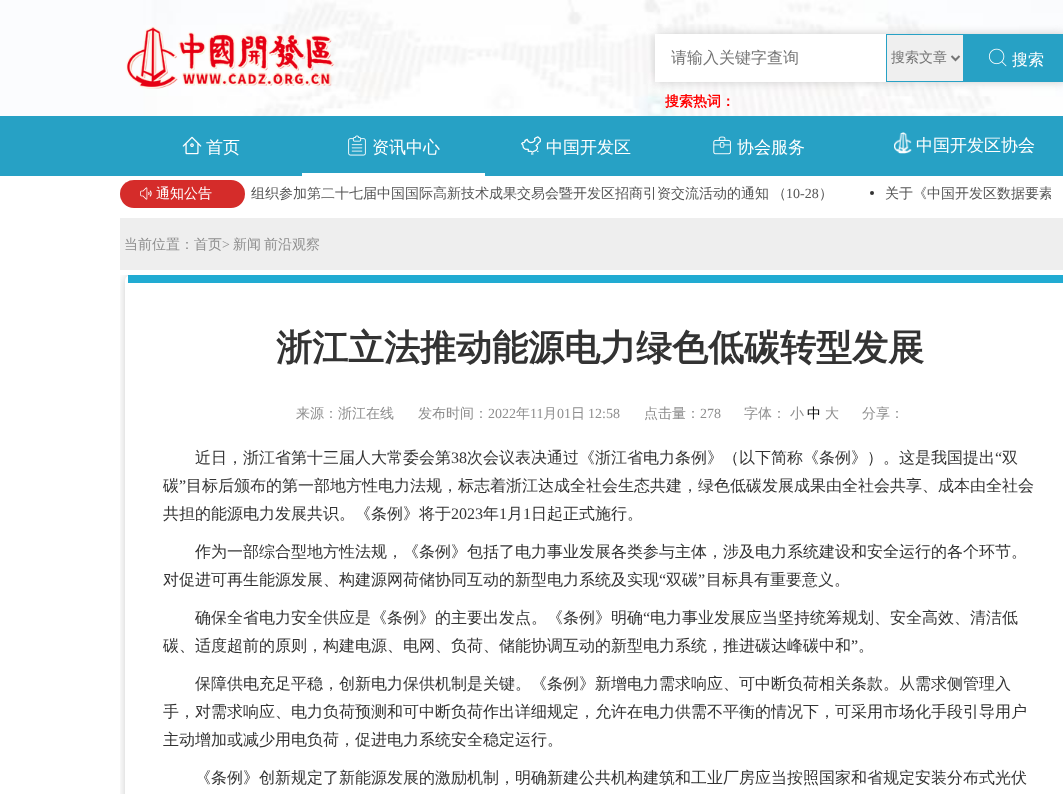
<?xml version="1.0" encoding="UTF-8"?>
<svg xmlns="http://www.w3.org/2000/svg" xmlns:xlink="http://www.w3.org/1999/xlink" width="1063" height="794">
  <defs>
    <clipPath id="clip1"><rect x="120" y="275" width="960" height="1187" /></clipPath>
    <clipPath id="clip2"><path d="M 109 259 h 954 v 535 h -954 z m 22 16 h 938 c 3.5 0 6 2.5 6 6 v 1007 c 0 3.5 -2.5 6 -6 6 h -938 c -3.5 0 -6 -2.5 -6 -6 v -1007 c 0 -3.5 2.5 -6 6 -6 z" clip-rule="evenodd" /></clipPath>
    <clipPath id="clip3"><rect x="245" y="177" width="806" height="44" /></clipPath>
  </defs>
  <rect width="100%" height="100%" fill="#ffffff" />
  <image x="0" y="0" width="1063" height="116" xlink:href="image1.png" />
  <image x="126" y="26" width="209" height="63" xlink:href="image2.png" />
  <rect x="655" y="34" width="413" height="48" rx="6" fill="#cccccc" filter="blur(5px)" />
  <rect x="655" y="34" width="231" height="48" fill="#ffffff" />
  <rect x="886.5" y="34.5" width="77" height="47" fill="#efefef" stroke="#27a1c5" />
  <path d="M 951.5 56 l 4 4 l 4 -4" fill="none" stroke="#757575" stroke-width="2" />
  <rect x="964" y="34" width="99" height="48" fill="#27a1c5" />
  <image x="988" y="48" width="19" height="19" xlink:href="image3.png" />
  <rect y="116" width="1063" height="60" fill="#27a1c5" />
  <image x="182" y="136" width="20" height="19" xlink:href="image4.png" />
  <image x="348" y="135" width="18" height="21" xlink:href="image5.png" />
  <rect x="302" y="173" width="183" height="3" fill="#ffffff" />
  <image x="521" y="136" width="20" height="19" xlink:href="image6.png" />
  <image x="713" y="136" width="18" height="19" xlink:href="image7.png" />
  <image x="894" y="132" width="18" height="22" xlink:href="image8.png" />
  <rect x="120" y="180" width="125" height="28" rx="14" fill="#d52c2a" />
  <image x="140" y="187" width="12" height="13" xlink:href="image9.png" />
  <circle cx="872" cy="193" r="2" fill="#333333" />
  <rect x="120" y="218" width="943" height="52" fill="#eeeeee" />
  <g clip-path="url(#clip1)">
    <g clip-path="url(#clip2)">
      <rect x="125" y="275" width="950" height="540" rx="6" fill="#cccccc" filter="blur(5px)" />
    </g>
  </g>
  <rect x="128" y="275" width="935" height="8" fill="#21abd2" />
  <text x="671" y="63" style="font-family: WenQuanYi Zen Hei; font-size: 16px; font-weight: 500; fill: #757575">请输入关键字查询</text>
  <text x="891" y="62" style="font-family: WenQuanYi Zen Hei; font-size: 14px; font-weight: 500; fill: #757575">搜索文章</text>
  <text x="665" y="106" style="font-family: WenQuanYi Zen Hei; font-size: 14px; font-weight: bold; fill: #ff0000">搜索热词：</text>
  <text x="1012" y="65" style="font-family: WenQuanYi Zen Hei; font-size: 16px; font-weight: 500; fill: #ffffff">搜索</text>
  <text x="206" y="153" style="font-family: WenQuanYi Zen Hei; font-size: 17px; font-weight: 500; fill: #ffffff">首页</text>
  <text x="372" y="153" style="font-family: WenQuanYi Zen Hei; font-size: 17px; font-weight: 500; fill: #ffffff">资讯中心</text>
  <text x="546" y="153" style="font-family: WenQuanYi Zen Hei; font-size: 17px; font-weight: 500; fill: #ffffff">中国开发区</text>
  <text x="737" y="153" style="font-family: WenQuanYi Zen Hei; font-size: 17px; font-weight: 500; fill: #ffffff">协会服务</text>
  <text x="916" y="151" style="font-family: WenQuanYi Zen Hei; font-size: 17px; font-weight: 500; fill: #ffffff">中国开发区协会</text>
  <text x="156" y="198" style="font-family: WenQuanYi Zen Hei; font-size: 14px; font-weight: 500; fill: #ffffff">通知公告</text>
  <text x="251" y="198" word-spacing="-1" style="font-family: WenQuanYi Zen Hei; font-size: 14px; font-weight: 500; fill: #555555">组织参加第二十七届中国国际高新技术成果交易会暨开发区招商引资交流活动的通知 （</text>
  <text x="786" y="198" style="font-family: Liberation Serif; font-size: 14px; fill: #555555">10-28</text>
  <text x="819" y="198" style="font-family: WenQuanYi Zen Hei; font-size: 14px; font-weight: 500; fill: #555555">）</text>
  <g clip-path="url(#clip3)">
    <text x="885" y="198" word-spacing="-1" style="font-family: WenQuanYi Zen Hei; font-size: 14px; font-weight: 500; fill: #555555">关于《中国开发区数据要素</text>
  </g>
  <text x="124" y="249" style="font-family: WenQuanYi Zen Hei; font-size: 14px; font-weight: 500; fill: #8e8e8e">当前位置：首页</text>
  <text x="222" y="249" style="font-family: Liberation Serif; font-size: 14px; fill: #8e8e8e">&gt;</text>
  <text x="233" y="249" style="font-family: WenQuanYi Zen Hei; font-size: 14px; font-weight: 500; fill: #8e8e8e">新闻</text>
  <text x="264" y="249" style="font-family: WenQuanYi Zen Hei; font-size: 14px; font-weight: 500; fill: #8e8e8e">前沿观察</text>
  <text x="276" y="360" style="font-family: WenQuanYi Zen Hei; font-size: 36px; font-weight: bold; fill: #333333">浙江立法推动能源电力绿色低碳转型发展</text>
  <text x="296" y="418" style="font-family: WenQuanYi Zen Hei; font-size: 14px; font-weight: 500; fill: #8e8e8e">来源：浙江在线</text>
  <text x="418" y="418" style="font-family: WenQuanYi Zen Hei; font-size: 14px; font-weight: 500; fill: #8e8e8e">发布时间：</text>
  <text x="488" y="418" style="font-family: Liberation Serif; font-size: 14px; fill: #8e8e8e">2022</text>
  <text x="516" y="418" style="font-family: WenQuanYi Zen Hei; font-size: 14px; font-weight: 500; fill: #8e8e8e">年</text>
  <text x="530" y="418" style="font-family: Liberation Serif; font-size: 14px; fill: #8e8e8e">11</text>
  <text x="543" y="418" style="font-family: WenQuanYi Zen Hei; font-size: 14px; font-weight: 500; fill: #8e8e8e">月</text>
  <text x="557" y="418" style="font-family: Liberation Serif; font-size: 14px; fill: #8e8e8e">01</text>
  <text x="571" y="418" style="font-family: WenQuanYi Zen Hei; font-size: 14px; font-weight: 500; fill: #8e8e8e">日</text>
  <text x="588" y="418" style="font-family: Liberation Serif; font-size: 14px; fill: #8e8e8e">12:58</text>
  <text x="644" y="418" style="font-family: WenQuanYi Zen Hei; font-size: 14px; font-weight: 500; fill: #8e8e8e">点击量：</text>
  <text x="700" y="418" style="font-family: Liberation Serif; font-size: 14px; fill: #8e8e8e">278</text>
  <text x="744" y="418" style="font-family: WenQuanYi Zen Hei; font-size: 14px; font-weight: 500; fill: #8e8e8e">字体：</text>
  <text x="790" y="418" style="font-family: WenQuanYi Zen Hei; font-size: 14px; font-weight: 500; fill: #8e8e8e">小</text>
  <text x="807" y="418" style="font-family: WenQuanYi Zen Hei; font-size: 14px; font-weight: 500; fill: #000000">中</text>
  <text x="825" y="418" style="font-family: WenQuanYi Zen Hei; font-size: 14px; font-weight: 500; fill: #8e8e8e">大</text>
  <text x="862" y="418" style="font-family: WenQuanYi Zen Hei; font-size: 14px; font-weight: 500; fill: #8e8e8e">分享：</text>
  <text x="195" y="463" style="font-family: WenQuanYi Zen Hei; font-size: 16px; font-weight: 500; fill: #333333">近日，浙江省第十三届人大常委会第</text>
  <text x="451" y="463" style="font-family: Liberation Serif; font-size: 16px; fill: #333333">38</text>
  <text x="467" y="463" style="font-family: WenQuanYi Zen Hei; font-size: 16px; font-weight: 500; fill: #333333">次会议表决通过《浙江省电力条例》（以下简称《条例》）。这是我国提出</text>
  <text x="995" y="463" style="font-family: Liberation Serif; font-size: 16px; fill: #333333">“</text>
  <text x="1002" y="463" style="font-family: WenQuanYi Zen Hei; font-size: 16px; font-weight: 500; fill: #333333">双</text>
  <text x="163" y="491" style="font-family: WenQuanYi Zen Hei; font-size: 16px; font-weight: 500; fill: #333333">碳</text>
  <text x="179" y="491" style="font-family: Liberation Serif; font-size: 16px; fill: #333333">”</text>
  <text x="186" y="491" style="font-family: WenQuanYi Zen Hei; font-size: 16px; font-weight: 500; fill: #333333">目标后颁布的第一部地方性电力法规，标志着浙江达成全社会生态共建，绿色低碳发展成果由全社会共享、成本由全社会</text>
  <text x="163" y="519" style="font-family: WenQuanYi Zen Hei; font-size: 16px; font-weight: 500; fill: #333333">共担的能源电力发展共识。《条例》将于</text>
  <text x="451" y="519" style="font-family: Liberation Serif; font-size: 16px; fill: #333333">2023</text>
  <text x="483" y="519" style="font-family: WenQuanYi Zen Hei; font-size: 16px; font-weight: 500; fill: #333333">年</text>
  <text x="499" y="519" style="font-family: Liberation Serif; font-size: 16px; fill: #333333">1</text>
  <text x="507" y="519" style="font-family: WenQuanYi Zen Hei; font-size: 16px; font-weight: 500; fill: #333333">月</text>
  <text x="523" y="519" style="font-family: Liberation Serif; font-size: 16px; fill: #333333">1</text>
  <text x="531" y="519" style="font-family: WenQuanYi Zen Hei; font-size: 16px; font-weight: 500; fill: #333333">日起正式施行。</text>
  <text x="195" y="557" style="font-family: WenQuanYi Zen Hei; font-size: 16px; font-weight: 500; fill: #333333">作为一部综合型地方性法规，《条例》包括了电力事业发展各类参与主体，涉及电力系统建设和安全运行的各个环节。</text>
  <text x="163" y="585" style="font-family: WenQuanYi Zen Hei; font-size: 16px; font-weight: 500; fill: #333333">对促进可再生能源发展、构建源网荷储协同互动的新型电力系统及实现</text>
  <text x="659" y="585" style="font-family: Liberation Serif; font-size: 16px; fill: #333333">“</text>
  <text x="666" y="585" style="font-family: WenQuanYi Zen Hei; font-size: 16px; font-weight: 500; fill: #333333">双碳</text>
  <text x="698" y="585" style="font-family: Liberation Serif; font-size: 16px; fill: #333333">”</text>
  <text x="706" y="585" style="font-family: WenQuanYi Zen Hei; font-size: 16px; font-weight: 500; fill: #333333">目标具有重要意义。</text>
  <text x="195" y="623" style="font-family: WenQuanYi Zen Hei; font-size: 16px; font-weight: 500; fill: #333333">确保全省电力安全供应是《条例》的主要出发点。《条例》明确</text>
  <text x="643" y="623" style="font-family: Liberation Serif; font-size: 16px; fill: #333333">“</text>
  <text x="650" y="623" style="font-family: WenQuanYi Zen Hei; font-size: 16px; font-weight: 500; fill: #333333">电力事业发展应当坚持统筹规划、安全高效、清洁低</text>
  <text x="163" y="651" style="font-family: WenQuanYi Zen Hei; font-size: 16px; font-weight: 500; fill: #333333">碳、适度超前的原则，构建电源、电网、负荷、储能协调互动的新型电力系统，推进碳达峰碳中和</text>
  <text x="851" y="651" style="font-family: Liberation Serif; font-size: 16px; fill: #333333">”</text>
  <text x="858" y="651" style="font-family: WenQuanYi Zen Hei; font-size: 16px; font-weight: 500; fill: #333333">。</text>
  <text x="195" y="689" style="font-family: WenQuanYi Zen Hei; font-size: 16px; font-weight: 500; fill: #333333">保障供电充足平稳，创新电力保供机制是关键。《条例》新增电力需求响应、可中断负荷相关条款。从需求侧管理入</text>
  <text x="163" y="717" style="font-family: WenQuanYi Zen Hei; font-size: 16px; font-weight: 500; fill: #333333">手，对需求响应、电力负荷预测和可中断负荷作出详细规定，允许在电力供需不平衡的情况下，可采用市场化手段引导用户</text>
  <text x="163" y="745" style="font-family: WenQuanYi Zen Hei; font-size: 16px; font-weight: 500; fill: #333333">主动增加或减少用电负荷，促进电力系统安全稳定运行。</text>
  <text x="195" y="783" style="font-family: WenQuanYi Zen Hei; font-size: 16px; font-weight: 500; fill: #333333">《条例》创新规定了新能源发展的激励机制，明确新建公共机构建筑和工业厂房应当按照国家和省规定安装分布式光伏</text>
</svg>
